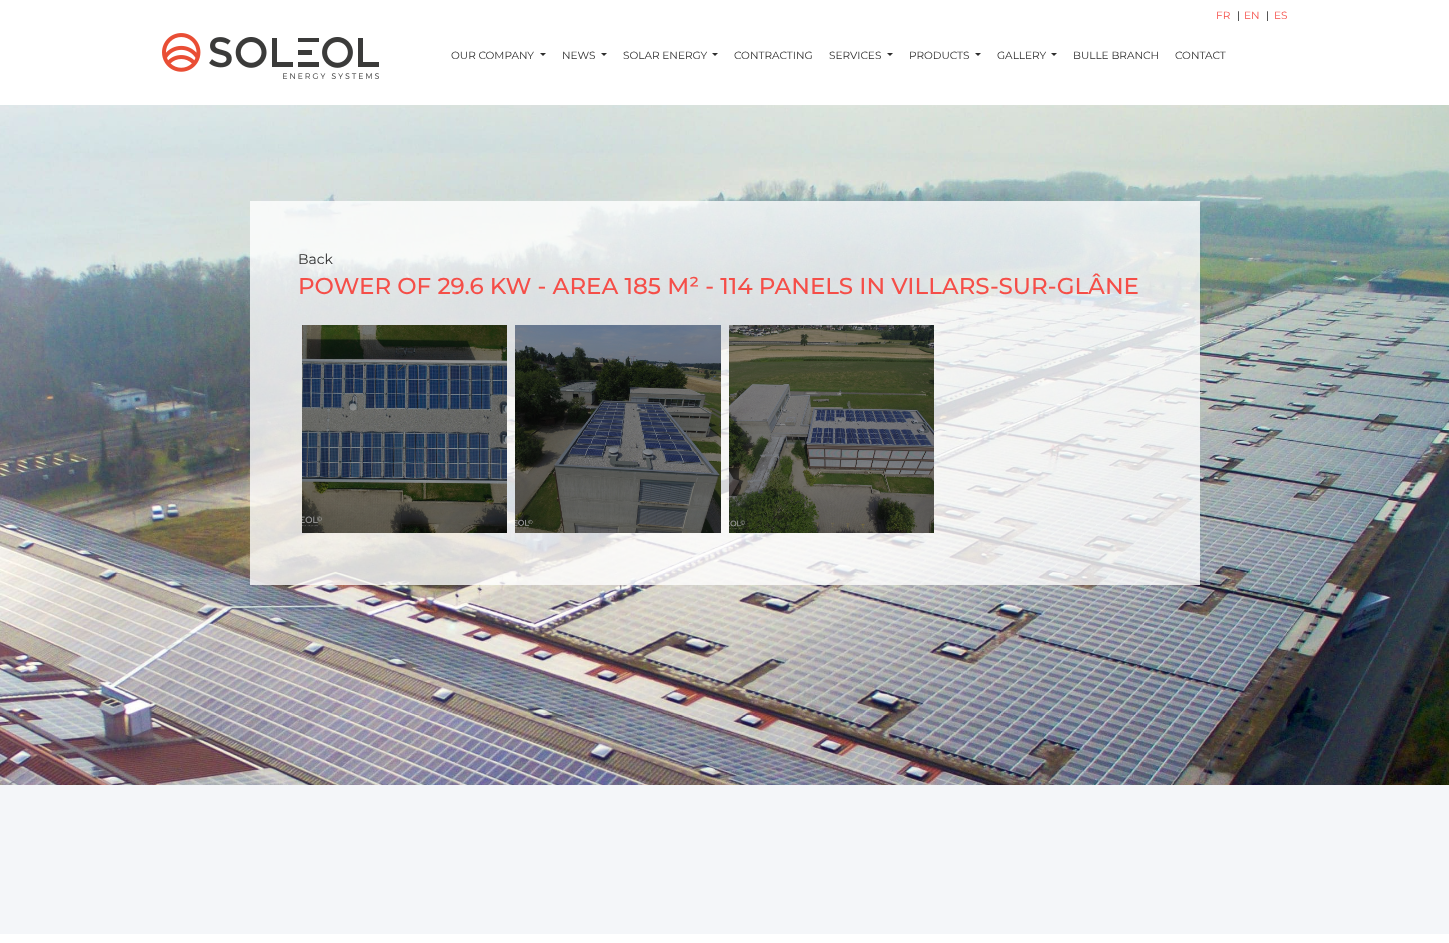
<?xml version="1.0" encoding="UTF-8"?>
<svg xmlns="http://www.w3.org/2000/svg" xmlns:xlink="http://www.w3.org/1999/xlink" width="1449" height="943">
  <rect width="100%" height="100%" fill="#ffffff" />
  <image x="162" y="33" width="217" height="46" xlink:href="image1.png" />
  <path d="M 540 53 h 6 l -3 3 z" fill="#2d2d2d" />
  <path d="M 601 53 h 6 l -3 3 z" fill="#2d2d2d" />
  <path d="M 712 53 h 6 l -3 3 z" fill="#2d2d2d" />
  <path d="M 887 53 h 6 l -3 3 z" fill="#2d2d2d" />
  <path d="M 975 53 h 6 l -3 3 z" fill="#2d2d2d" />
  <path d="M 1051 53 h 6 l -3 3 z" fill="#2d2d2d" />
  <rect y="785" width="1449" height="149" fill="#f4f6f9" />
  <image x="0" y="105" width="1449" height="680" xlink:href="image2.png" />
  <rect x="250" y="201" width="950" height="384" fill="#ffffff" fill-opacity="0.8" />
  <image x="302" y="325" width="205" height="208" xlink:href="image3.png" />
  <image x="515" y="325" width="206" height="208" xlink:href="image4.png" />
  <image x="729" y="325" width="205" height="208" xlink:href="image5.png" />
  <text x="1216" y="19" style="font-family: Montserrat; font-size: 10.5px; fill: #f54e48">FR</text>
  <text x="1237" y="19" style="font-family: Montserrat; font-size: 10.5px; fill: #000000">|</text>
  <text x="1244" y="19" style="font-family: Montserrat; font-size: 10.5px; fill: #f54e48">EN</text>
  <text x="1266" y="19" style="font-family: Montserrat; font-size: 10.5px; fill: #000000">|</text>
  <text x="1274" y="19" style="font-family: Montserrat; font-size: 10.5px; fill: #f54e48">ES</text>
  <text x="451" y="59" style="font-family: Montserrat; font-size: 10.5px; fill: #2d2d2d">OUR COMPANY</text>
  <text x="562" y="59" style="font-family: Montserrat; font-size: 10.5px; fill: #2d2d2d">NEWS</text>
  <text x="623" y="59" style="font-family: Montserrat; font-size: 10.5px; fill: #2d2d2d">SOLAR ENERGY</text>
  <text x="734" y="59" style="font-family: Montserrat; font-size: 10.5px; fill: #2d2d2d">CONTRACTING</text>
  <text x="829" y="59" style="font-family: Montserrat; font-size: 10.5px; fill: #2d2d2d">SERVICES</text>
  <text x="909" y="59" style="font-family: Montserrat; font-size: 10.5px; fill: #2d2d2d">PRODUCTS</text>
  <text x="997" y="59" style="font-family: Montserrat; font-size: 10.5px; fill: #2d2d2d">GALLERY</text>
  <text x="1073" y="59" style="font-family: Montserrat; font-size: 10.5px; fill: #2d2d2d">BULLE BRANCH</text>
  <text x="1175" y="59" style="font-family: Montserrat; font-size: 10.5px; fill: #2d2d2d">CONTACT</text>
  <text x="298" y="264" style="font-family: Montserrat; font-size: 14px; fill: #2d2d2d">Back</text>
  <text x="298" y="294" style="font-family: Montserrat; font-size: 23px; font-weight: 500; fill: #f54e48">POWER OF 29.6 KW - AREA 185 M² - 114 PANELS IN VILLARS-SUR-GLÂNE</text>
</svg>
